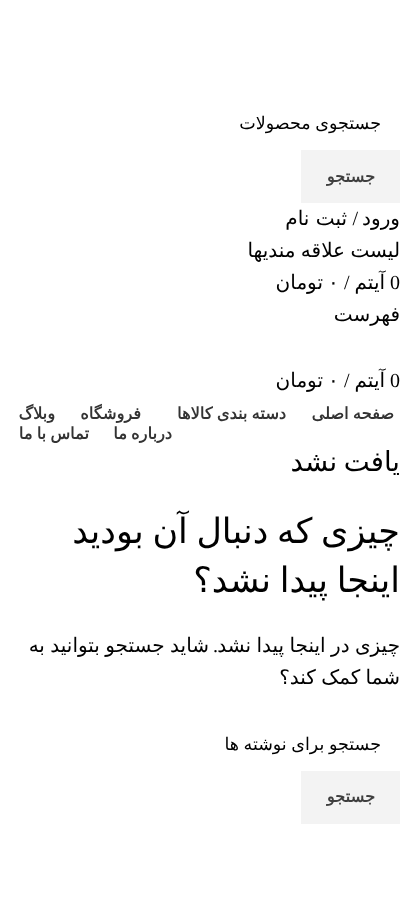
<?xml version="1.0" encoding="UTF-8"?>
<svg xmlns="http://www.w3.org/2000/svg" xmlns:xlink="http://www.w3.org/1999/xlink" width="418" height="923">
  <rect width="100%" height="100%" fill="#ffffff" />
  <rect x="301" y="150" width="99" height="53" fill="#f3f3f3" />
  <rect x="301" y="771" width="99" height="53" fill="#f3f3f3" />
  <text x="381" y="129" word-spacing="-1" style="font-family: DejaVu Sans; font-size: 17.5px; direction: rtl; fill: #000000">جستجوی محصولات</text>
  <text x="375" y="182" style="font-family: DejaVu Sans; font-size: 16.25px; font-weight: bold; direction: rtl; fill: #3e3e3e">جستجو</text>
  <text x="400" y="225" style="font-family: DejaVu Sans; font-size: 20px; direction: rtl; fill: #000000">ورود</text>
  <text x="358" y="225" style="font-family: Liberation Serif; font-size: 20px; direction: rtl; fill: #000000">/</text>
  <text x="347" y="225" style="font-family: DejaVu Sans; font-size: 20px; direction: rtl; fill: #000000">ثبت نام</text>
  <text x="400" y="257" word-spacing="-1" style="font-family: DejaVu Sans; font-size: 20px; direction: rtl; fill: #000000">لیست علاقه مندیها</text>
  <text x="390" y="289" style="font-family: Liberation Serif; font-size: 20px; fill: #000000">0</text>
  <text x="385" y="289" style="font-family: DejaVu Sans; font-size: 20px; direction: rtl; fill: #000000">آیتم</text>
  <text x="344" y="289" style="font-family: Liberation Serif; font-size: 20px; fill: #000000">/</text>
  <text x="328" y="289" style="font-family: DejaVu Sans; font-size: 20px; fill: #000000">۰</text>
  <text x="323" y="289" style="font-family: DejaVu Sans; font-size: 20px; direction: rtl; fill: #000000">تومان</text>
  <text x="400" y="321" style="font-family: DejaVu Sans; font-size: 20px; direction: rtl; fill: #000000">فهرست</text>
  <text x="390" y="387" style="font-family: Liberation Serif; font-size: 20px; fill: #000000">0</text>
  <text x="385" y="387" style="font-family: DejaVu Sans; font-size: 20px; direction: rtl; fill: #000000">آیتم</text>
  <text x="344" y="387" style="font-family: Liberation Serif; font-size: 20px; fill: #000000">/</text>
  <text x="328" y="387" style="font-family: DejaVu Sans; font-size: 20px; fill: #000000">۰</text>
  <text x="323" y="387" style="font-family: DejaVu Sans; font-size: 20px; direction: rtl; fill: #000000">تومان</text>
  <text x="394" y="419" word-spacing="-1" style="font-family: DejaVu Sans; font-size: 16.25px; font-weight: bold; direction: rtl; fill: #333333">صفحه اصلی</text>
  <text x="286" y="419" word-spacing="-1" style="font-family: DejaVu Sans; font-size: 16.25px; font-weight: bold; direction: rtl; fill: #333333">دسته بندی کالاها</text>
  <text x="141" y="419" style="font-family: DejaVu Sans; font-size: 16.25px; font-weight: bold; direction: rtl; fill: #333333">فروشگاه</text>
  <text x="55" y="419" style="font-family: DejaVu Sans; font-size: 16.25px; font-weight: bold; direction: rtl; fill: #333333">وبلاگ</text>
  <text x="172" y="439" word-spacing="-1" style="font-family: DejaVu Sans; font-size: 16.25px; font-weight: bold; direction: rtl; fill: #333333">درباره ما</text>
  <text x="89" y="439" word-spacing="-1" style="font-family: DejaVu Sans; font-size: 16.25px; font-weight: bold; direction: rtl; fill: #333333">تماس با ما</text>
  <text x="400" y="471" word-spacing="-2" style="font-family: DejaVu Sans; font-size: 27.5px; direction: rtl; fill: #000000">یافت نشد</text>
  <text x="400" y="543" word-spacing="-2.5" style="font-family: DejaVu Sans; font-size: 35px; direction: rtl; fill: #000000">چیزی که دنبال آن بودید</text>
  <text x="400" y="592" word-spacing="-2.5" style="font-family: DejaVu Sans; font-size: 35px; direction: rtl; fill: #000000">اینجا پیدا نشد؟</text>
  <text x="400" y="652" word-spacing="-1" style="font-family: DejaVu Sans; font-size: 20px; direction: rtl; fill: #000000">چیزی در اینجا پیدا نشد</text>
  <text x="218" y="652" style="font-family: Liberation Serif; font-size: 20px; direction: rtl; fill: #000000">.</text>
  <text x="209" y="652" word-spacing="-1" style="font-family: DejaVu Sans; font-size: 20px; direction: rtl; fill: #000000">شاید جستجو بتوانید به</text>
  <text x="400" y="684" word-spacing="-1" style="font-family: DejaVu Sans; font-size: 20px; direction: rtl; fill: #000000">شما کمک کند؟</text>
  <text x="381" y="750" word-spacing="-1" style="font-family: DejaVu Sans; font-size: 17.5px; direction: rtl; fill: #000000">جستجو برای نوشته ها</text>
  <text x="375" y="802" style="font-family: DejaVu Sans; font-size: 16.25px; font-weight: bold; direction: rtl; fill: #3e3e3e">جستجو</text>
</svg>
